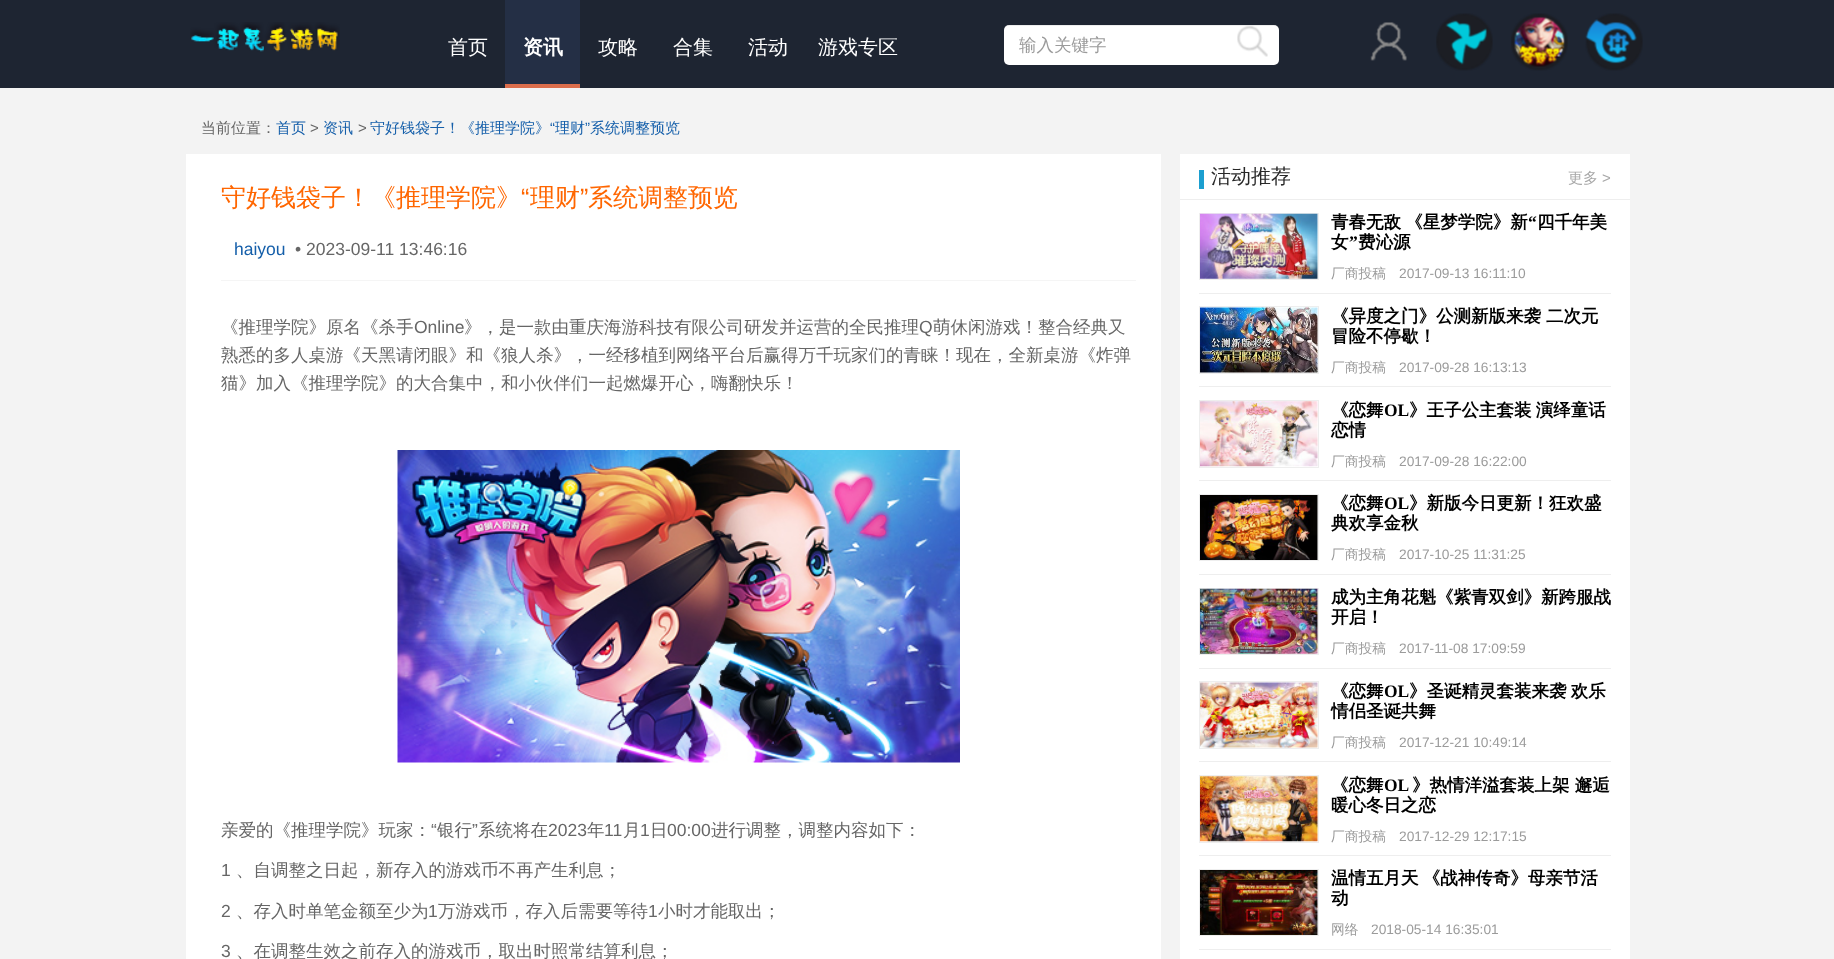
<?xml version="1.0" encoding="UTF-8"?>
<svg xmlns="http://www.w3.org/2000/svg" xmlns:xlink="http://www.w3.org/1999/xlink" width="1834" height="959">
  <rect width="100%" height="100%" fill="#f3f3f3" />
  <rect width="1834" height="88" fill="#1e2532" />
  <image x="190" y="22" width="150" height="30" xlink:href="image1.png" />
  <rect x="505" width="75" height="84" fill="#242f45" />
  <rect x="505" y="84" width="75" height="4" fill="#db6d4b" />
  <rect x="1004" y="25" width="275" height="40" rx="5" fill="#ffffff" />
  <path d="M 1009 26 h 265 c 3 0 5 2 5 5 c 0 -3 -2 -6 -5 -6 h -265 c -3 0 -5 3 -5 6 c 0 -3 2 -5 5 -5 z" fill="#000000" fill-opacity="0.07" />
  <image x="1237" y="25" width="31" height="32" xlink:href="image2.png" />
  <image x="1370" y="22" width="37" height="39" xlink:href="image3.png" />
  <image x="1436" y="13" width="57" height="58" xlink:href="image4.png" />
  <image x="1511" y="13" width="57" height="58" xlink:href="image5.png" />
  <image x="1585" y="13" width="58" height="58" xlink:href="image6.png" />
  <rect x="186" y="154" width="975" height="805" fill="#ffffff" />
  <rect x="221" y="280" width="915" height="1" fill="#f5f5f5" />
  <image x="397" y="450" width="563" height="313" xlink:href="image7.png" />
  <rect x="1180" y="154" width="450" height="805" fill="#ffffff" />
  <rect x="1180" y="199" width="450" height="1" fill="#eeeeee" />
  <rect x="1199" y="170" width="5" height="19" fill="#1c9fd0" />
  <rect x="1199" y="293" width="412" height="1" fill="#eeeeee" />
  <rect x="1199.5" y="213.5" width="119" height="66" fill="none" stroke="#eeeeee" />
  <image x="1200" y="213" width="118" height="66" xlink:href="image8.png" />
  <rect x="1199" y="386" width="412" height="1" fill="#eeeeee" />
  <rect x="1199.5" y="306.5" width="119" height="67" fill="none" stroke="#eeeeee" />
  <image x="1200" y="307" width="118" height="66" xlink:href="image9.png" />
  <rect x="1199" y="480" width="412" height="1" fill="#eeeeee" />
  <rect x="1199.5" y="400.5" width="119" height="67" fill="none" stroke="#eeeeee" />
  <image x="1200" y="401" width="118" height="66" xlink:href="image10.png" />
  <rect x="1199" y="574" width="412" height="1" fill="#eeeeee" />
  <rect x="1199.5" y="494.5" width="119" height="66" fill="none" stroke="#eeeeee" />
  <image x="1200" y="495" width="118" height="65" xlink:href="image11.png" />
  <rect x="1199" y="668" width="412" height="1" fill="#eeeeee" />
  <rect x="1199.5" y="588.5" width="119" height="66" fill="none" stroke="#eeeeee" />
  <image x="1200" y="588" width="118" height="66" xlink:href="image12.png" />
  <rect x="1199" y="761" width="412" height="1" fill="#eeeeee" />
  <rect x="1199.5" y="681.5" width="119" height="67" fill="none" stroke="#eeeeee" />
  <image x="1200" y="682" width="118" height="66" xlink:href="image13.png" />
  <rect x="1199" y="855" width="412" height="1" fill="#eeeeee" />
  <rect x="1199.5" y="775.5" width="119" height="67" fill="none" stroke="#eeeeee" />
  <image x="1200" y="776" width="118" height="66" xlink:href="image14.png" />
  <rect x="1199" y="949" width="412" height="1" fill="#eeeeee" />
  <rect x="1199.5" y="869.5" width="119" height="66" fill="none" stroke="#eeeeee" />
  <image x="1200" y="870" width="118" height="65" xlink:href="image15.png" />
  <text x="448" y="54" style="font-family: WenQuanYi Zen Hei; font-size: 20px; font-weight: 500; fill: #ffffff">首页</text>
  <text x="523" y="54" style="font-family: WenQuanYi Zen Hei; font-size: 20px; font-weight: bold; fill: #ffffff">资讯</text>
  <text x="598" y="54" style="font-family: WenQuanYi Zen Hei; font-size: 20px; font-weight: 500; fill: #ffffff">攻略</text>
  <text x="673" y="54" style="font-family: WenQuanYi Zen Hei; font-size: 20px; font-weight: 500; fill: #ffffff">合集</text>
  <text x="748" y="54" style="font-family: WenQuanYi Zen Hei; font-size: 20px; font-weight: 500; fill: #ffffff">活动</text>
  <text x="818" y="54" style="font-family: WenQuanYi Zen Hei; font-size: 20px; font-weight: 500; fill: #ffffff">游戏专区</text>
  <text x="1019" y="51" style="font-family: WenQuanYi Zen Hei; font-size: 17.5px; font-weight: 500; fill: #9b9b9b">输入关键字</text>
  <text x="201" y="133" style="font-family: WenQuanYi Zen Hei; font-size: 15px; font-weight: 500; fill: #666666">当前位置：</text>
  <text x="276" y="133" style="font-family: WenQuanYi Zen Hei; font-size: 15px; font-weight: 500; fill: #155faa">首页</text>
  <text x="310" y="133" style="font-family: Liberation Sans; font-size: 15px; fill: #666666">&gt;</text>
  <text x="323" y="133" style="font-family: WenQuanYi Zen Hei; font-size: 15px; font-weight: 500; fill: #155faa">资讯</text>
  <text x="358" y="133" style="font-family: Liberation Sans; font-size: 15px; fill: #666666">&gt;</text>
  <text x="370" y="133" style="font-family: WenQuanYi Zen Hei; font-size: 15px; font-weight: 500; fill: #155faa">守好钱袋子！《推理学院》</text>
  <text x="550" y="133" style="font-family: Liberation Sans; font-size: 15px; fill: #155faa">“</text>
  <text x="555" y="133" style="font-family: WenQuanYi Zen Hei; font-size: 15px; font-weight: 500; fill: #155faa">理财</text>
  <text x="585" y="133" style="font-family: Liberation Sans; font-size: 15px; fill: #155faa">”</text>
  <text x="590" y="133" style="font-family: WenQuanYi Zen Hei; font-size: 15px; font-weight: 500; fill: #155faa">系统调整预览</text>
  <text x="221" y="206" style="font-family: WenQuanYi Zen Hei; font-size: 25px; font-weight: 500; fill: #ff6600">守好钱袋子！《推理学院》</text>
  <text x="521" y="206" style="font-family: Liberation Sans; font-size: 25px; fill: #ff6600">“</text>
  <text x="530" y="206" style="font-family: WenQuanYi Zen Hei; font-size: 25px; font-weight: 500; fill: #ff6600">理财</text>
  <text x="580" y="206" style="font-family: Liberation Sans; font-size: 25px; fill: #ff6600">”</text>
  <text x="588" y="206" style="font-family: WenQuanYi Zen Hei; font-size: 25px; font-weight: 500; fill: #ff6600">系统调整预览</text>
  <text x="234" y="255" style="font-family: Liberation Sans; font-size: 17.5px; fill: #155faa">haiyou</text>
  <text x="295" y="255" style="font-family: Liberation Sans; font-size: 17.5px; fill: #666666">• 2023-09-11 13:46:16</text>
  <text x="221" y="333" style="font-family: WenQuanYi Zen Hei; font-size: 17.5px; font-weight: 500; fill: #666666">《推理学院》原名《杀手</text>
  <text x="414" y="333" style="font-family: Liberation Sans; font-size: 17.5px; fill: #666666">Online</text>
  <text x="464" y="333" style="font-family: WenQuanYi Zen Hei; font-size: 17.5px; font-weight: 500; fill: #666666">》，是一款由重庆海游科技有限公司研发并运营的全民推理</text>
  <text x="919" y="333" style="font-family: Liberation Sans; font-size: 17.5px; fill: #666666">Q</text>
  <text x="933" y="333" style="font-family: WenQuanYi Zen Hei; font-size: 17.5px; font-weight: 500; fill: #666666">萌休闲游戏！整合经典又</text>
  <text x="221" y="361" style="font-family: WenQuanYi Zen Hei; font-size: 17.5px; font-weight: 500; fill: #666666">熟悉的多人桌游《天黑请闭眼》和《狼人杀》，一经移植到网络平台后赢得万千玩家们的青睐！现在，全新桌游《炸弹</text>
  <text x="221" y="389" style="font-family: WenQuanYi Zen Hei; font-size: 17.5px; font-weight: 500; fill: #666666">猫》加入《推理学院》的大合集中，和小伙伴们一起燃爆开心，嗨翻快乐！</text>
  <text x="221" y="836" style="font-family: WenQuanYi Zen Hei; font-size: 17.5px; font-weight: 500; fill: #666666">亲爱的《推理学院》玩家：</text>
  <text x="431" y="836" style="font-family: Liberation Sans; font-size: 17.5px; fill: #666666">“</text>
  <text x="437" y="836" style="font-family: WenQuanYi Zen Hei; font-size: 17.5px; font-weight: 500; fill: #666666">银行</text>
  <text x="472" y="836" style="font-family: Liberation Sans; font-size: 17.5px; fill: #666666">”</text>
  <text x="478" y="836" style="font-family: WenQuanYi Zen Hei; font-size: 17.5px; font-weight: 500; fill: #666666">系统将在</text>
  <text x="548" y="836" style="font-family: Liberation Sans; font-size: 17.5px; fill: #666666">2023</text>
  <text x="587" y="836" style="font-family: WenQuanYi Zen Hei; font-size: 17.5px; font-weight: 500; fill: #666666">年</text>
  <text x="604" y="836" style="font-family: Liberation Sans; font-size: 17.5px; fill: #666666">11</text>
  <text x="623" y="836" style="font-family: WenQuanYi Zen Hei; font-size: 17.5px; font-weight: 500; fill: #666666">月</text>
  <text x="640" y="836" style="font-family: Liberation Sans; font-size: 17.5px; fill: #666666">1</text>
  <text x="650" y="836" style="font-family: WenQuanYi Zen Hei; font-size: 17.5px; font-weight: 500; fill: #666666">日</text>
  <text x="667" y="836" style="font-family: Liberation Sans; font-size: 17.5px; fill: #666666">00:00</text>
  <text x="711" y="836" style="font-family: WenQuanYi Zen Hei; font-size: 17.5px; font-weight: 500; fill: #666666">进行调整，调整内容如下：</text>
  <text x="221" y="876" style="font-family: Liberation Sans; font-size: 17.5px; fill: #666666">1</text>
  <text x="236" y="876" style="font-family: WenQuanYi Zen Hei; font-size: 17.5px; font-weight: 500; fill: #666666">、自调整之日起，新存入的游戏币不再产生利息；</text>
  <text x="221" y="917" style="font-family: Liberation Sans; font-size: 17.5px; fill: #666666">2</text>
  <text x="236" y="917" style="font-family: WenQuanYi Zen Hei; font-size: 17.5px; font-weight: 500; fill: #666666">、存入时单笔金额至少为</text>
  <text x="428" y="917" style="font-family: Liberation Sans; font-size: 17.5px; fill: #666666">1</text>
  <text x="438" y="917" style="font-family: WenQuanYi Zen Hei; font-size: 17.5px; font-weight: 500; fill: #666666">万游戏币，存入后需要等待</text>
  <text x="648" y="917" style="font-family: Liberation Sans; font-size: 17.5px; fill: #666666">1</text>
  <text x="658" y="917" style="font-family: WenQuanYi Zen Hei; font-size: 17.5px; font-weight: 500; fill: #666666">小时才能取出；</text>
  <text x="221" y="957" style="font-family: Liberation Sans; font-size: 17.5px; fill: #666666">3</text>
  <text x="236" y="957" style="font-family: WenQuanYi Zen Hei; font-size: 17.5px; font-weight: 500; fill: #666666">、在调整生效之前存入的游戏币，取出时照常结算利息；</text>
  <text x="1211" y="183" style="font-family: WenQuanYi Zen Hei; font-size: 20px; font-weight: 500; fill: #282828">活动推荐</text>
  <text x="1568" y="183" style="font-family: WenQuanYi Zen Hei; font-size: 15px; font-weight: 500; fill: #a8a8a8">更多</text>
  <text x="1602" y="183" style="font-family: Liberation Sans; font-size: 15px; fill: #a8a8a8">&gt;</text>
  <text x="1331" y="228" word-spacing="-1" style="font-family: WenQuanYi Zen Hei; font-size: 17.5px; font-weight: bold; fill: #000000">青春无敌 《星梦学院》新</text>
  <text x="1528" y="228" style="font-family: Liberation Serif; font-size: 17.5px; font-weight: bold; fill: #000000">“</text>
  <text x="1537" y="228" style="font-family: WenQuanYi Zen Hei; font-size: 17.5px; font-weight: bold; fill: #000000">四千年美</text>
  <text x="1331" y="248" style="font-family: WenQuanYi Zen Hei; font-size: 17.5px; font-weight: bold; fill: #000000">女</text>
  <text x="1349" y="248" style="font-family: Liberation Serif; font-size: 17.5px; font-weight: bold; fill: #000000">”</text>
  <text x="1358" y="248" style="font-family: WenQuanYi Zen Hei; font-size: 17.5px; font-weight: bold; fill: #000000">费沁源</text>
  <text x="1331" y="278" style="font-family: WenQuanYi Zen Hei; font-size: 13.75px; font-weight: 500; fill: #9b9b9b">厂商投稿</text>
  <text x="1399" y="278" style="font-family: Liberation Sans; font-size: 13.75px; fill: #9b9b9b">2017-09-13 16:11:10</text>
  <text x="1331" y="322" style="font-family: WenQuanYi Zen Hei; font-size: 17.5px; font-weight: bold; fill: #000000">《异度之门》公测新版来袭</text>
  <text x="1546" y="322" style="font-family: WenQuanYi Zen Hei; font-size: 17.5px; font-weight: bold; fill: #000000">二次元</text>
  <text x="1331" y="342" style="font-family: WenQuanYi Zen Hei; font-size: 17.5px; font-weight: bold; fill: #000000">冒险不停歇！</text>
  <text x="1331" y="372" style="font-family: WenQuanYi Zen Hei; font-size: 13.75px; font-weight: 500; fill: #9b9b9b">厂商投稿</text>
  <text x="1399" y="372" style="font-family: Liberation Sans; font-size: 13.75px; fill: #9b9b9b">2017-09-28 16:13:13</text>
  <text x="1331" y="416" style="font-family: WenQuanYi Zen Hei; font-size: 17.5px; font-weight: bold; fill: #000000">《恋舞</text>
  <text x="1384" y="416" style="font-family: Liberation Serif; font-size: 17.5px; font-weight: bold; fill: #000000">OL</text>
  <text x="1409" y="416" word-spacing="-1" style="font-family: WenQuanYi Zen Hei; font-size: 17.5px; font-weight: bold; fill: #000000">》王子公主套装 演绎童话</text>
  <text x="1331" y="436" style="font-family: WenQuanYi Zen Hei; font-size: 17.5px; font-weight: bold; fill: #000000">恋情</text>
  <text x="1331" y="466" style="font-family: WenQuanYi Zen Hei; font-size: 13.75px; font-weight: 500; fill: #9b9b9b">厂商投稿</text>
  <text x="1399" y="466" style="font-family: Liberation Sans; font-size: 13.75px; fill: #9b9b9b">2017-09-28 16:22:00</text>
  <text x="1331" y="509" style="font-family: WenQuanYi Zen Hei; font-size: 17.5px; font-weight: bold; fill: #000000">《恋舞</text>
  <text x="1384" y="509" style="font-family: Liberation Serif; font-size: 17.5px; font-weight: bold; fill: #000000">OL</text>
  <text x="1409" y="509" style="font-family: WenQuanYi Zen Hei; font-size: 17.5px; font-weight: bold; fill: #000000">》新版今日更新！狂欢盛</text>
  <text x="1331" y="529" style="font-family: WenQuanYi Zen Hei; font-size: 17.5px; font-weight: bold; fill: #000000">典欢享金秋</text>
  <text x="1331" y="559" style="font-family: WenQuanYi Zen Hei; font-size: 13.75px; font-weight: 500; fill: #9b9b9b">厂商投稿</text>
  <text x="1399" y="559" style="font-family: Liberation Sans; font-size: 13.75px; fill: #9b9b9b">2017-10-25 11:31:25</text>
  <text x="1331" y="603" style="font-family: WenQuanYi Zen Hei; font-size: 17.5px; font-weight: bold; fill: #000000">成为主角花魁《紫青双剑》新跨服战</text>
  <text x="1331" y="623" style="font-family: WenQuanYi Zen Hei; font-size: 17.5px; font-weight: bold; fill: #000000">开启！</text>
  <text x="1331" y="653" style="font-family: WenQuanYi Zen Hei; font-size: 13.75px; font-weight: 500; fill: #9b9b9b">厂商投稿</text>
  <text x="1399" y="653" style="font-family: Liberation Sans; font-size: 13.75px; fill: #9b9b9b">2017-11-08 17:09:59</text>
  <text x="1331" y="697" style="font-family: WenQuanYi Zen Hei; font-size: 17.5px; font-weight: bold; fill: #000000">《恋舞</text>
  <text x="1384" y="697" style="font-family: Liberation Serif; font-size: 17.5px; font-weight: bold; fill: #000000">OL</text>
  <text x="1409" y="697" word-spacing="-1" style="font-family: WenQuanYi Zen Hei; font-size: 17.5px; font-weight: bold; fill: #000000">》圣诞精灵套装来袭 欢乐</text>
  <text x="1331" y="717" style="font-family: WenQuanYi Zen Hei; font-size: 17.5px; font-weight: bold; fill: #000000">情侣圣诞共舞</text>
  <text x="1331" y="747" style="font-family: WenQuanYi Zen Hei; font-size: 13.75px; font-weight: 500; fill: #9b9b9b">厂商投稿</text>
  <text x="1399" y="747" style="font-family: Liberation Sans; font-size: 13.75px; fill: #9b9b9b">2017-12-21 10:49:14</text>
  <text x="1331" y="791" style="font-family: WenQuanYi Zen Hei; font-size: 17.5px; font-weight: bold; fill: #000000">《恋舞</text>
  <text x="1384" y="791" style="font-family: Liberation Serif; font-size: 17.5px; font-weight: bold; fill: #000000">OL</text>
  <text x="1412" y="791" style="font-family: WenQuanYi Zen Hei; font-size: 17.5px; font-weight: bold; fill: #000000">》热情洋溢套装上架 邂逅</text>
  <text x="1331" y="811" style="font-family: WenQuanYi Zen Hei; font-size: 17.5px; font-weight: bold; fill: #000000">暖心冬日之恋</text>
  <text x="1331" y="841" style="font-family: WenQuanYi Zen Hei; font-size: 13.75px; font-weight: 500; fill: #9b9b9b">厂商投稿</text>
  <text x="1399" y="841" style="font-family: Liberation Sans; font-size: 13.75px; fill: #9b9b9b">2017-12-29 12:17:15</text>
  <text x="1331" y="884" word-spacing="-1" style="font-family: WenQuanYi Zen Hei; font-size: 17.5px; font-weight: bold; fill: #000000">温情五月天 《战神传奇》母亲节活</text>
  <text x="1331" y="904" style="font-family: WenQuanYi Zen Hei; font-size: 17.5px; font-weight: bold; fill: #000000">动</text>
  <text x="1331" y="934" style="font-family: WenQuanYi Zen Hei; font-size: 13.75px; font-weight: 500; fill: #9b9b9b">网络</text>
  <text x="1371" y="934" style="font-family: Liberation Sans; font-size: 13.75px; fill: #9b9b9b">2018-05-14 16:35:01</text>
</svg>
